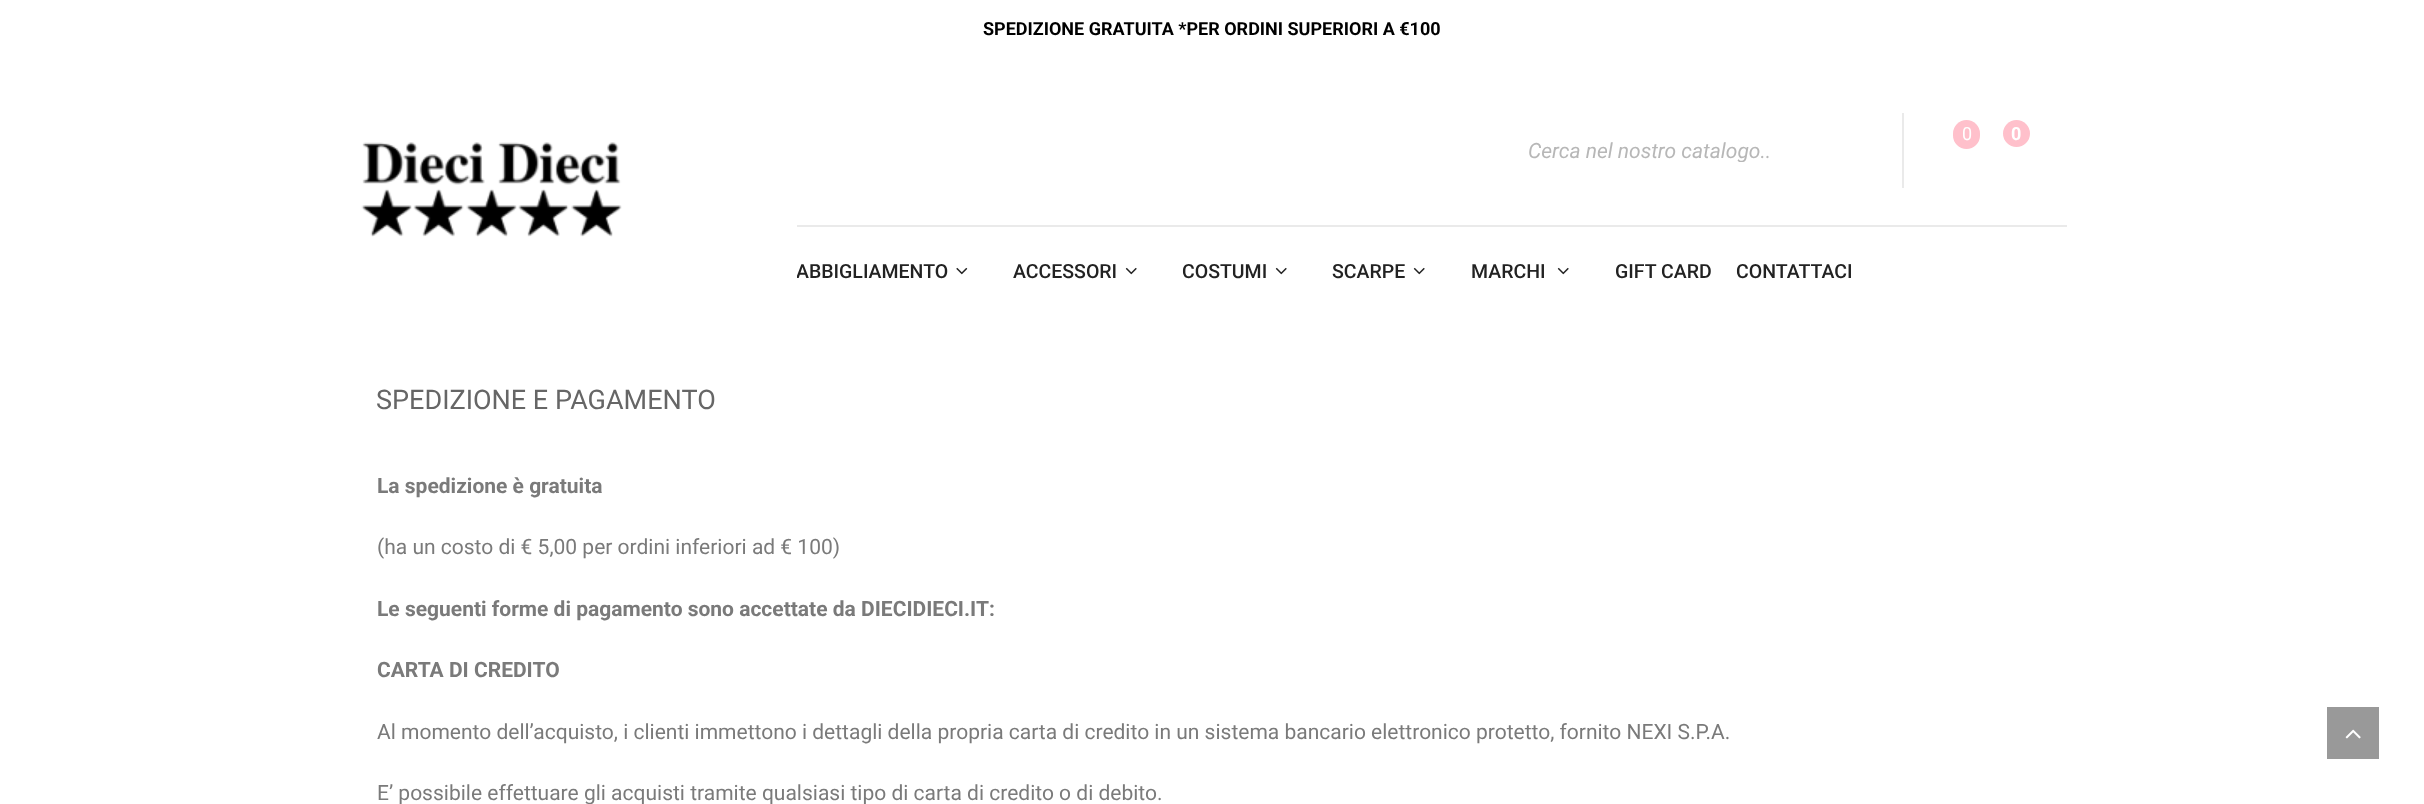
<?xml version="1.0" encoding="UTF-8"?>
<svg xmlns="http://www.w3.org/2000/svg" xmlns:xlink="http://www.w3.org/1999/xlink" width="2424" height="804">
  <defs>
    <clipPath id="clip1"><rect x="1529" y="138" width="276" height="24" /></clipPath>
    <clipPath id="clip2"><rect x="797" y="227" width="151" height="90" /></clipPath>
  </defs>
  <rect width="100%" height="100%" fill="#ffffff" />
  <image x="361" y="142" width="261" height="95" xlink:href="image1.png" />
  <rect x="1953" y="120" width="27" height="29" rx="13.5" fill="#ffc0cb" />
  <rect x="1902" y="113" width="2" height="75" fill="#eaeaea" />
  <circle cx="2016.5" cy="133.5" r="13.5" fill="#ffc0cb" />
  <rect x="797" y="225" width="1270" height="2" fill="#eaeaea" />
  <image x="956" y="267" width="12" height="8" xlink:href="image2.png" />
  <image x="1125" y="267" width="12" height="8" xlink:href="image3.png" />
  <image x="1275" y="267" width="12" height="8" xlink:href="image3.png" />
  <image x="1413" y="267" width="12" height="8" xlink:href="image3.png" />
  <image x="1557" y="267" width="12" height="8" xlink:href="image3.png" />
  <rect x="2327" y="707" width="52" height="52" fill="#999999" />
  <image x="2345" y="729" width="16" height="10" xlink:href="image4.png" />
  <text x="983" y="35" style="font-family: Roboto; font-size: 18px; font-weight: bold; fill: #000000">SPEDIZIONE GRATUITA *PER ORDINI SUPERIORI A €100</text>
  <text x="1962" y="140" style="font-family: Roboto; font-size: 18px; fill: #ffffff">0</text>
  <g clip-path="url(#clip1)">
    <text x="1528" y="158" style="font-family: Roboto; font-size: 21px; font-style: italic; fill: #b7b7b7">Cerca nel nostro catalogo..</text>
  </g>
  <text x="2011" y="140" style="font-family: Roboto; font-size: 18px; font-weight: bold; fill: #ffffff">0</text>
  <g clip-path="url(#clip2)">
    <text x="796" y="278" style="font-family: Roboto; font-size: 19.5px; font-weight: 500; fill: #222222">ABBIGLIAMENTO</text>
  </g>
  <text x="1013" y="278" style="font-family: Roboto; font-size: 19.5px; font-weight: 500; fill: #222222">ACCESSORI</text>
  <text x="1182" y="278" style="font-family: Roboto; font-size: 19.5px; font-weight: 500; fill: #222222">COSTUMI</text>
  <text x="1332" y="278" style="font-family: Roboto; font-size: 19.5px; font-weight: 500; fill: #222222">SCARPE</text>
  <text x="1471" y="278" style="font-family: Roboto; font-size: 19.5px; font-weight: 500; fill: #222222">MARCHI</text>
  <text x="1615" y="278" style="font-family: Roboto; font-size: 19.5px; font-weight: 500; fill: #222222">GIFT CARD</text>
  <text x="1736" y="278" style="font-family: Roboto; font-size: 19.5px; font-weight: 500; fill: #222222">CONTATTACI</text>
  <text x="376" y="409" style="font-family: Roboto; font-size: 27px; fill: #666666">SPEDIZIONE E PAGAMENTO</text>
  <text x="377" y="493" style="font-family: Roboto; font-size: 21px; font-weight: bold; fill: #7a7a7a">La spedizione è gratuita</text>
  <text x="377" y="554" style="font-family: Roboto; font-size: 21px; fill: #7a7a7a">(ha un costo di € 5,00 per ordini inferiori ad € 100)</text>
  <text x="377" y="616" style="font-family: Roboto; font-size: 21px; font-weight: bold; fill: #7a7a7a">Le seguenti forme di pagamento sono accettate da DIECIDIECI.IT:</text>
  <text x="377" y="677" style="font-family: Roboto; font-size: 21px; font-weight: bold; fill: #7a7a7a">CARTA DI CREDITO</text>
  <text x="377" y="739" style="font-family: Roboto; font-size: 21px; fill: #7a7a7a">Al momento dell’acquisto, i clienti immettono i dettagli della propria carta di credito in un sistema bancario elettronico protetto, fornito NEXI S.P.A.</text>
  <text x="377" y="800" style="font-family: Roboto; font-size: 21px; fill: #7a7a7a">E’ possibile effettuare gli acquisti tramite qualsiasi tipo di carta di credito o di debito.</text>
</svg>
